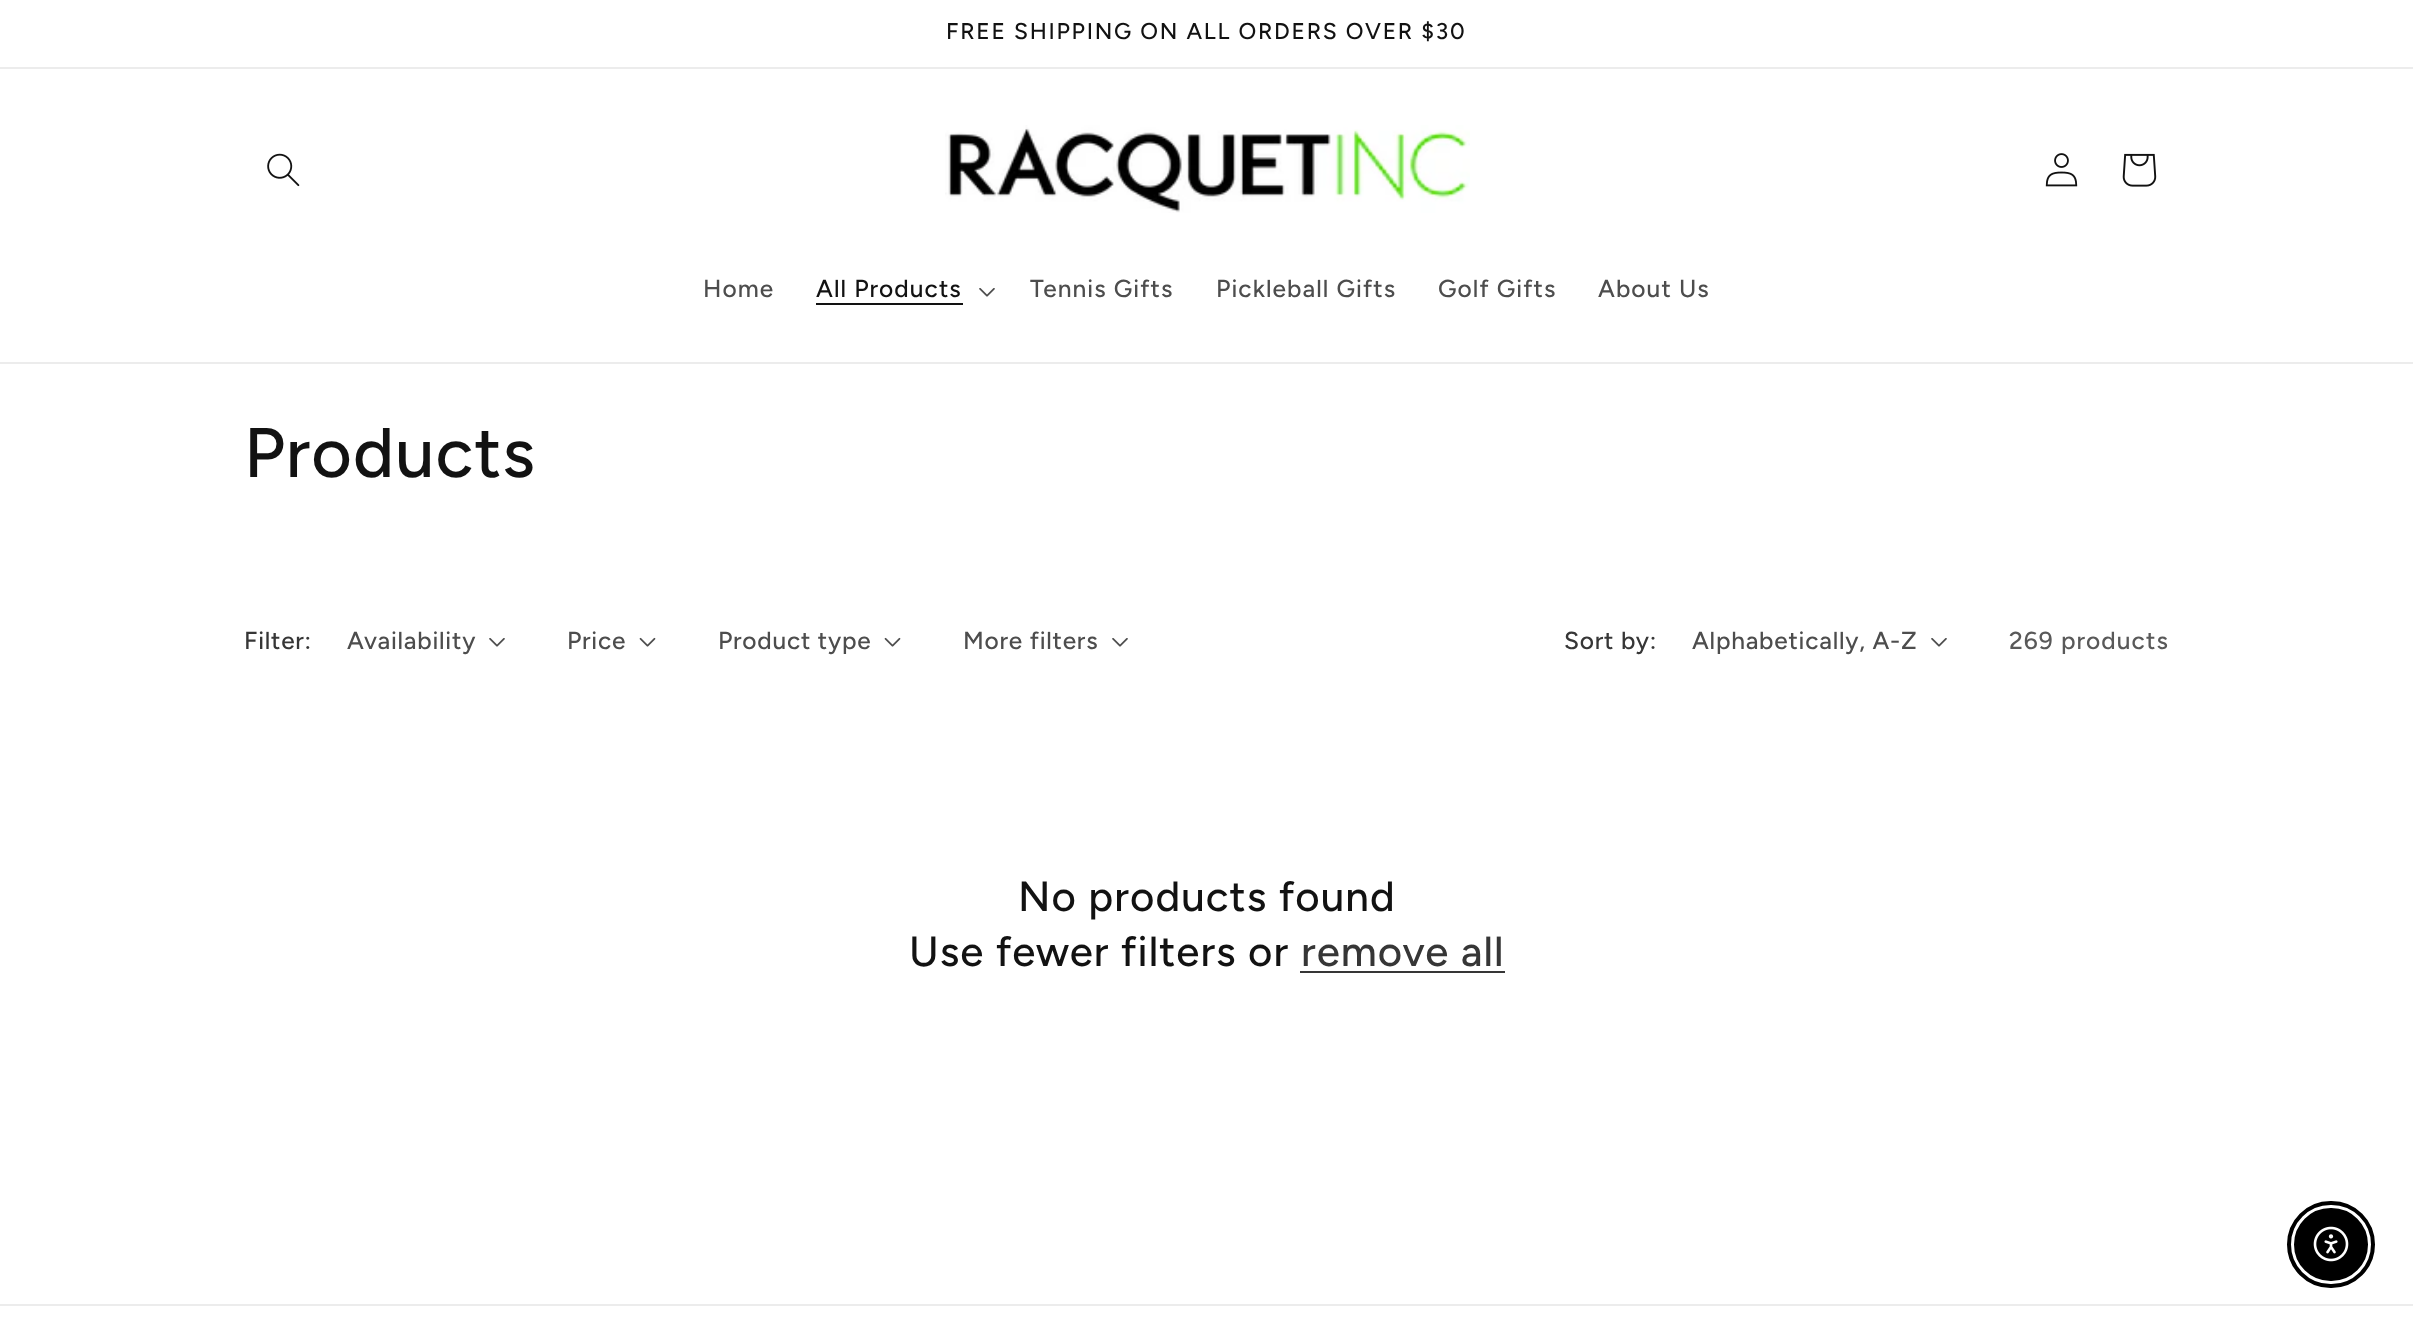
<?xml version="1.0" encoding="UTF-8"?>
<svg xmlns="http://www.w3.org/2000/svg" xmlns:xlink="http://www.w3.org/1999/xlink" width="2413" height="1344">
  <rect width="100%" height="100%" fill="#ffffff" />
  <rect y="67" width="2413" height="2" fill="#ececec" />
  <rect y="362" width="2413" height="2" fill="#ececec" />
  <image x="267" y="153" width="33" height="34" xlink:href="image1.png" />
  <image x="945" y="125" width="525" height="88" xlink:href="image2.png" />
  <image x="2045" y="153" width="33" height="34" xlink:href="image3.png" />
  <image x="2122" y="153" width="35" height="34" xlink:href="image4.png" />
  <rect x="816" y="303" width="147" height="2" fill="#121212" />
  <image x="979" y="288" width="16" height="9" xlink:href="image5.png" />
  <image x="489" y="638" width="16" height="9" xlink:href="image5.png" />
  <image x="639" y="637" width="17" height="10" xlink:href="image6.png" />
  <image x="884" y="637" width="17" height="10" xlink:href="image6.png" />
  <image x="1112" y="638" width="16" height="9" xlink:href="image5.png" />
  <image x="1931" y="638" width="16" height="9" xlink:href="image5.png" />
  <rect x="1300" y="971" width="205" height="2" fill="#363636" />
  <rect x="2289" y="1203" width="84" height="83" rx="41.5" fill="none" stroke="#000000" stroke-width="4" />
  <rect x="2295" y="1209" width="72" height="71" rx="35.5" fill="#000000" stroke="#000000" stroke-width="2" />
  <image x="2313" y="1226" width="36" height="36" xlink:href="image7.png" />
  <rect y="1304" width="2413" height="2" fill="#ececec" />
  <text x="946" y="39" style="font-family: Figtree; font-size: 22.75px; font-weight: 500; letter-spacing: 1.75px; fill: #121212">FREE SHIPPING ON ALL ORDERS OVER $30</text>
  <text x="703" y="297" style="font-family: Figtree; font-size: 24.5px; font-weight: 500; letter-spacing: 1.05px; fill: #4d4d4d">Home</text>
  <text x="816" y="297" style="font-family: Figtree; font-size: 24.5px; font-weight: 500; letter-spacing: 1.05px; fill: #121212">All Products</text>
  <text x="1030" y="297" style="font-family: Figtree; font-size: 24.5px; font-weight: 500; letter-spacing: 1.05px; fill: #4d4d4d">Tennis Gifts</text>
  <text x="1216" y="297" style="font-family: Figtree; font-size: 24.5px; font-weight: 500; letter-spacing: 1.05px; fill: #4d4d4d">Pickleball Gifts</text>
  <text x="1438" y="297" style="font-family: Figtree; font-size: 24.5px; font-weight: 500; letter-spacing: 1.05px; fill: #4d4d4d">Golf Gifts</text>
  <text x="1598" y="297" style="font-family: Figtree; font-size: 24.5px; font-weight: 500; letter-spacing: 1.05px; fill: #4d4d4d">About Us</text>
  <text x="244" y="477" style="font-family: Figtree; font-size: 70px; font-weight: 500; letter-spacing: 1.05px; fill: #121212">Products</text>
  <text x="244" y="649" style="font-family: Figtree; font-size: 24.5px; font-weight: 500; letter-spacing: 0.75px; fill: #363636">Filter:</text>
  <text x="347" y="649" style="font-family: Figtree; font-size: 24.5px; font-weight: 500; letter-spacing: 0.75px; fill: #4d4d4d">Availability</text>
  <text x="567" y="649" style="font-family: Figtree; font-size: 24.5px; font-weight: 500; letter-spacing: 0.75px; fill: #4d4d4d">Price</text>
  <text x="718" y="649" style="font-family: Figtree; font-size: 24.5px; font-weight: 500; letter-spacing: 0.75px; fill: #4d4d4d">Product type</text>
  <text x="963" y="649" style="font-family: Figtree; font-size: 24.5px; font-weight: 500; letter-spacing: 0.75px; fill: #4d4d4d">More filters</text>
  <text x="1564" y="649" style="font-family: Figtree; font-size: 24.5px; font-weight: 500; letter-spacing: 0.75px; fill: #363636">Sort by:</text>
  <text x="1692" y="649" style="font-family: Figtree; font-size: 24.5px; font-weight: 500; letter-spacing: 0.75px; fill: #4d4d4d">Alphabetically, A-Z</text>
  <text x="2009" y="649" style="font-family: Figtree; font-size: 24.5px; font-weight: 500; letter-spacing: 1.05px; fill: #595959">269 products</text>
  <text x="1018" y="911" style="font-family: Figtree; font-size: 42px; font-weight: 500; letter-spacing: 1.05px; fill: #121212">No products found</text>
  <text x="909" y="966" style="font-family: Figtree; font-size: 42px; font-weight: 500; letter-spacing: 1.05px; fill: #121212">Use fewer filters or</text>
  <text x="1301" y="966" style="font-family: Figtree; font-size: 42px; font-weight: 500; letter-spacing: 1.05px; fill: #363636">remove all</text>
</svg>
